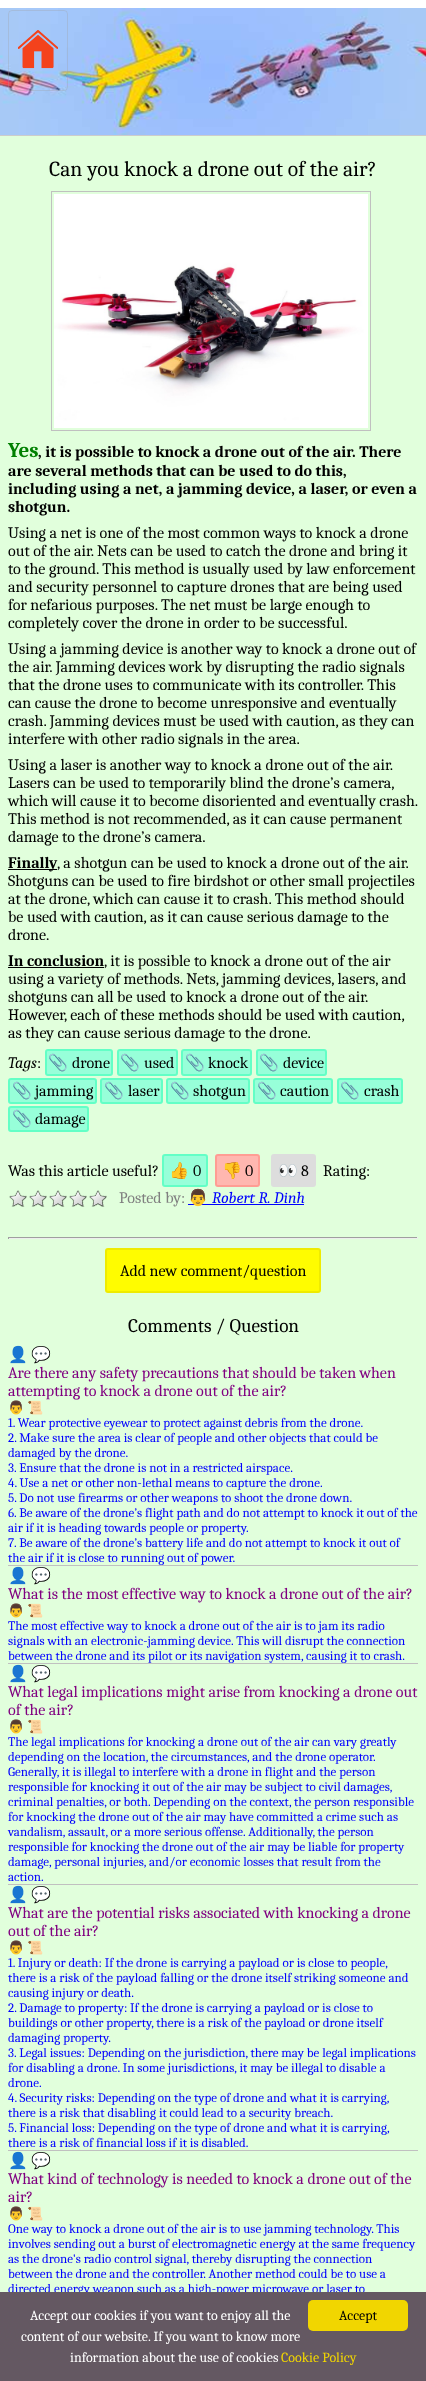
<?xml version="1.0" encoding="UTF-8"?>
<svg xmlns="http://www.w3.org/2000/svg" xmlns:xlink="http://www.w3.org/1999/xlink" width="426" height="2381">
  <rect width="100%" height="100%" fill="#ffffff" />
  <rect y="136" width="426" height="2156" fill="#e1ffdc" />
  <image x="0" y="8" width="426" height="127" xlink:href="image1.png" />
  <rect y="135" width="426" height="1" fill="#cccccc" />
  <rect x="8.5" y="10.5" width="59" height="80" rx="3.5" fill="none" stroke="#9e9e9e" stroke-opacity="0.3" />
  <image x="18" y="30" width="40" height="39" xlink:href="image2.png" />
  <rect x="51.5" y="191.5" width="319" height="239" fill="none" stroke="#c0c0c0" />
  <image x="54" y="194" width="314" height="234" xlink:href="image3.png" />
  <rect x="8" y="869" width="49" height="1" fill="#000000" />
  <rect x="8" y="967" width="96" height="1" fill="#000000" />
  <rect x="46" y="1050" width="66" height="25" rx="2" fill="#97ffd9" stroke="#63ffc6" stroke-width="2" />
  <rect x="118" y="1050" width="59" height="25" rx="2" fill="#97ffd9" stroke="#63ffc6" stroke-width="2" />
  <rect x="182" y="1050" width="69" height="25" rx="2" fill="#97ffd9" stroke="#63ffc6" stroke-width="2" />
  <rect x="257" y="1050" width="69" height="25" rx="2" fill="#97ffd9" stroke="#63ffc6" stroke-width="2" />
  <rect x="9" y="1079" width="87" height="24" rx="2" fill="#97ffd9" stroke="#63ffc6" stroke-width="2" />
  <rect x="101" y="1079" width="61" height="24" rx="2" fill="#97ffd9" stroke="#63ffc6" stroke-width="2" />
  <rect x="167" y="1079" width="82" height="24" rx="2" fill="#97ffd9" stroke="#63ffc6" stroke-width="2" />
  <rect x="254" y="1079" width="78" height="24" rx="2" fill="#97ffd9" stroke="#63ffc6" stroke-width="2" />
  <rect x="338" y="1079" width="64" height="24" rx="2" fill="#97ffd9" stroke="#63ffc6" stroke-width="2" />
  <rect x="9" y="1107" width="79" height="24" rx="2" fill="#97ffd9" stroke="#63ffc6" stroke-width="2" />
  <rect x="163" y="1155" width="44" height="31" rx="2" fill="#97ffd9" stroke="#63ffc6" stroke-width="2" />
  <rect x="216" y="1155" width="43" height="31" rx="2" fill="#ffb7b0" stroke="#ff9d94" stroke-width="2" />
  <rect x="272" y="1155" width="43" height="31" rx="2" fill="#dddddd" stroke="#dddddd" stroke-width="2" />
  <image x="9" y="1190" width="98" height="17" xlink:href="image4.png" />
  <rect x="188" y="1204" width="116" height="1" fill="#0000ff" />
  <rect x="8" y="1237" width="410" height="1" fill="#9f9f9f" />
  <rect x="417" y="1237" width="1" height="2" fill="#eeeeee" />
  <rect x="8" y="1238" width="410" height="1" fill="#eeeeee" />
  <rect x="8" y="1237" width="1" height="2" fill="#9f9f9f" />
  <rect x="106" y="1249" width="214" height="43" rx="2" fill="#fffc00" stroke="#efeb00" stroke-width="2" />
  <rect x="8" y="1565" width="410" height="1" fill="#c0c0c0" />
  <rect x="8" y="1663" width="410" height="1" fill="#c0c0c0" />
  <rect x="8" y="1884" width="410" height="1" fill="#c0c0c0" />
  <rect x="8" y="2150" width="410" height="1" fill="#c0c0c0" />
  <text x="49" y="176" style="font-family: Caladea; font-size: 21.6px; fill: #000000">Can you knock a drone out of the air?</text>
  <text x="8" y="457" style="font-family: Caladea; font-size: 21px; font-weight: bold; fill: #008000">Yes</text>
  <text x="38" y="457" style="font-family: Caladea; font-size: 16px; font-weight: bold; fill: #000000">, it is possible to knock a drone out of the air. There</text>
  <text x="8" y="476" style="font-family: Caladea; font-size: 16px; font-weight: bold; fill: #000000">are several methods that can be used to do this,</text>
  <text x="8" y="494" style="font-family: Caladea; font-size: 16px; font-weight: bold; fill: #000000">including using a net, a jamming device, a laser, or even a</text>
  <text x="8" y="512" style="font-family: Caladea; font-size: 16px; font-weight: bold; fill: #000000">shotgun.</text>
  <text x="8" y="538" style="font-family: Caladea; font-size: 16px; fill: #000000">Using a net is one of the most common ways to knock a drone</text>
  <text x="8" y="556" style="font-family: Caladea; font-size: 16px; fill: #000000">out of the air. Nets can be used to catch the drone and bring it</text>
  <text x="8" y="574" style="font-family: Caladea; font-size: 16px; fill: #000000">to the ground. This method is usually used by law enforcement</text>
  <text x="8" y="592" style="font-family: Caladea; font-size: 16px; fill: #000000">and security personnel to capture drones that are being used</text>
  <text x="8" y="610" style="font-family: Caladea; font-size: 16px; fill: #000000">for nefarious purposes. The net must be large enough to</text>
  <text x="8" y="628" style="font-family: Caladea; font-size: 16px; fill: #000000">completely cover the drone in order to be successful.</text>
  <text x="8" y="654" style="font-family: Caladea; font-size: 16px; fill: #000000">Using a jamming device is another way to knock a drone out of</text>
  <text x="8" y="672" style="font-family: Caladea; font-size: 16px; fill: #000000">the air. Jamming devices work by disrupting the radio signals</text>
  <text x="8" y="690" style="font-family: Caladea; font-size: 16px; fill: #000000">that the drone uses to communicate with its controller. This</text>
  <text x="8" y="708" style="font-family: Caladea; font-size: 16px; fill: #000000">can cause the drone to become unresponsive and eventually</text>
  <text x="8" y="726" style="font-family: Caladea; font-size: 16px; fill: #000000">crash. Jamming devices must be used with caution, as they can</text>
  <text x="8" y="744" style="font-family: Caladea; font-size: 16px; fill: #000000">interfere with other radio signals in the area.</text>
  <text x="8" y="770" style="font-family: Caladea; font-size: 16px; fill: #000000">Using a laser is another way to knock a drone out of the air.</text>
  <text x="8" y="788" style="font-family: Caladea; font-size: 16px; fill: #000000">Lasers can be used to temporarily blind the drone’s camera,</text>
  <text x="8" y="806" style="font-family: Caladea; font-size: 16px; fill: #000000">which will cause it to become disoriented and eventually crash.</text>
  <text x="8" y="824" style="font-family: Caladea; font-size: 16px; fill: #000000">This method is not recommended, as it can cause permanent</text>
  <text x="8" y="842" style="font-family: Caladea; font-size: 16px; fill: #000000">damage to the drone’s camera.</text>
  <text x="8" y="868" style="font-family: Caladea; font-size: 16px; font-weight: bold; fill: #000000">Finally</text>
  <text x="57" y="868" style="font-family: Caladea; font-size: 16px; fill: #000000">, a shotgun can be used to knock a drone out of the air.</text>
  <text x="8" y="886" style="font-family: Caladea; font-size: 16px; fill: #000000">Shotguns can be used to fire birdshot or other small projectiles</text>
  <text x="8" y="904" style="font-family: Caladea; font-size: 16px; fill: #000000">at the drone, which can cause it to crash. This method should</text>
  <text x="8" y="922" style="font-family: Caladea; font-size: 16px; fill: #000000">be used with caution, as it can cause serious damage to the</text>
  <text x="8" y="940" style="font-family: Caladea; font-size: 16px; fill: #000000">drone.</text>
  <text x="8" y="966" style="font-family: Caladea; font-size: 16px; font-weight: bold; fill: #000000">In conclusion</text>
  <text x="104" y="966" style="font-family: Caladea; font-size: 16px; fill: #000000">, it is possible to knock a drone out of the air</text>
  <text x="8" y="984" style="font-family: Caladea; font-size: 16px; fill: #000000">using a variety of methods. Nets, jamming devices, lasers, and</text>
  <text x="8" y="1002" style="font-family: Caladea; font-size: 16px; fill: #000000">shotguns can all be used to knock a drone out of the air.</text>
  <text x="8" y="1020" style="font-family: Caladea; font-size: 16px; fill: #000000">However, each of these methods should be used with caution,</text>
  <text x="8" y="1038" style="font-family: Caladea; font-size: 16px; fill: #000000">as they can cause serious damage to the drone.</text>
  <text x="8" y="1068" style="font-family: Caladea; font-size: 16px; font-style: italic; fill: #000000">Tags</text>
  <text x="37" y="1068" style="font-family: Caladea; font-size: 16px; fill: #000000">:</text>
  <text x="48" y="1068" style="font-family: Noto Color Emoji; font-size: 16px; fill: #000000">📎</text>
  <text x="72" y="1068" style="font-family: Caladea; font-size: 16px; fill: #000000">drone</text>
  <text x="120" y="1068" style="font-family: Noto Color Emoji; font-size: 16px; fill: #000000">📎</text>
  <text x="144" y="1068" style="font-family: Caladea; font-size: 16px; fill: #000000">used</text>
  <text x="185" y="1068" style="font-family: Noto Color Emoji; font-size: 16px; fill: #000000">📎</text>
  <text x="208" y="1068" style="font-family: Caladea; font-size: 16px; fill: #000000">knock</text>
  <text x="259" y="1068" style="font-family: Noto Color Emoji; font-size: 16px; fill: #000000">📎</text>
  <text x="283" y="1068" style="font-family: Caladea; font-size: 16px; fill: #000000">device</text>
  <text x="12" y="1096" style="font-family: Noto Color Emoji; font-size: 16px; fill: #000000">📎</text>
  <text x="35" y="1096" style="font-family: Caladea; font-size: 16px; fill: #000000">jamming</text>
  <text x="104" y="1096" style="font-family: Noto Color Emoji; font-size: 16px; fill: #000000">📎</text>
  <text x="128" y="1096" style="font-family: Caladea; font-size: 16px; fill: #000000">laser</text>
  <text x="170" y="1096" style="font-family: Noto Color Emoji; font-size: 16px; fill: #000000">📎</text>
  <text x="193" y="1096" style="font-family: Caladea; font-size: 16px; fill: #000000">shotgun</text>
  <text x="257" y="1096" style="font-family: Noto Color Emoji; font-size: 16px; fill: #000000">📎</text>
  <text x="280" y="1096" style="font-family: Caladea; font-size: 16px; fill: #000000">caution</text>
  <text x="340" y="1096" style="font-family: Noto Color Emoji; font-size: 16px; fill: #000000">📎</text>
  <text x="364" y="1096" style="font-family: Caladea; font-size: 16px; fill: #000000">crash</text>
  <text x="12" y="1124" style="font-family: Noto Color Emoji; font-size: 16px; fill: #000000">📎</text>
  <text x="35" y="1124" style="font-family: Caladea; font-size: 16px; fill: #000000">damage</text>
  <text x="8" y="1176" style="font-family: Caladea; font-size: 16px; fill: #000000">Was this article useful?</text>
  <text x="169" y="1176" style="font-family: Noto Color Emoji; font-size: 16px; fill: #000000">👍</text>
  <text x="193" y="1176" style="font-family: Caladea; font-size: 16px; fill: #000000">0</text>
  <text x="222" y="1176" style="font-family: Noto Color Emoji; font-size: 16px; fill: #000000">👎</text>
  <text x="245" y="1176" style="font-family: Caladea; font-size: 16px; fill: #000000">0</text>
  <text x="278" y="1176" style="font-family: Noto Color Emoji; font-size: 16px; fill: #000000">👀</text>
  <text x="301" y="1176" style="font-family: Caladea; font-size: 16px; fill: #000000">8</text>
  <text x="323" y="1176" style="font-family: Caladea; font-size: 16px; fill: #000000">Rating:</text>
  <text x="119" y="1203" style="font-family: Caladea; font-size: 16px; fill: #808080">Posted by:</text>
  <text x="188" y="1203" style="font-family: Noto Color Emoji; font-size: 16px; fill: #0000ff">👨</text>
  <text x="212" y="1203" style="font-family: Caladea; font-size: 16px; font-style: italic; fill: #0000ff">Robert R. Dinh</text>
  <text x="120" y="1276" style="font-family: Caladea; font-size: 16px; fill: #000000">Add new comment/question</text>
  <text x="128" y="1332" style="font-family: Caladea; font-size: 19.25px; fill: #000000">Comments / Question</text>
  <text x="8" y="1360" style="font-family: Noto Color Emoji; font-size: 16px; fill: #800080">👤</text>
  <text x="31" y="1360" style="font-family: Noto Color Emoji; font-size: 16px; fill: #800080">💬</text>
  <text x="8" y="1378" style="font-family: Caladea; font-size: 16px; fill: #800080">Are there any safety precautions that should be taken when</text>
  <text x="8" y="1396" style="font-family: Caladea; font-size: 16px; fill: #800080">attempting to knock a drone out of the air?</text>
  <text x="8" y="1412" style="font-family: Noto Color Emoji; font-size: 13px; fill: #0000ff">👨</text>
  <text x="27" y="1412" style="font-family: Noto Color Emoji; font-size: 13px; fill: #0000ff">📜</text>
  <text x="8" y="1427" style="font-family: Caladea; font-size: 13px; fill: #0000ff">1. Wear protective eyewear to protect against debris from the drone.</text>
  <text x="8" y="1442" style="font-family: Caladea; font-size: 13px; fill: #0000ff">2. Make sure the area is clear of people and other objects that could be</text>
  <text x="8" y="1457" style="font-family: Caladea; font-size: 13px; fill: #0000ff">damaged by the drone.</text>
  <text x="8" y="1472" style="font-family: Caladea; font-size: 13px; fill: #0000ff">3. Ensure that the drone is not in a restricted airspace.</text>
  <text x="8" y="1487" style="font-family: Caladea; font-size: 13px; fill: #0000ff">4. Use a net or other non-lethal means to capture the drone.</text>
  <text x="8" y="1502" style="font-family: Caladea; font-size: 13px; fill: #0000ff">5. Do not use firearms or other weapons to shoot the drone down.</text>
  <text x="8" y="1517" style="font-family: Caladea; font-size: 13px; fill: #0000ff">6. Be aware of the drone’s flight path and do not attempt to knock it out of the</text>
  <text x="8" y="1532" style="font-family: Caladea; font-size: 13px; fill: #0000ff">air if it is heading towards people or property.</text>
  <text x="8" y="1547" style="font-family: Caladea; font-size: 13px; fill: #0000ff">7. Be aware of the drone’s battery life and do not attempt to knock it out of</text>
  <text x="8" y="1562" style="font-family: Caladea; font-size: 13px; fill: #0000ff">the air if it is close to running out of power.</text>
  <text x="8" y="1581" style="font-family: Noto Color Emoji; font-size: 16px; fill: #800080">👤</text>
  <text x="31" y="1581" style="font-family: Noto Color Emoji; font-size: 16px; fill: #800080">💬</text>
  <text x="8" y="1599" style="font-family: Caladea; font-size: 16px; fill: #800080">What is the most effective way to knock a drone out of the air?</text>
  <text x="8" y="1615" style="font-family: Noto Color Emoji; font-size: 13px; fill: #0000ff">👨</text>
  <text x="27" y="1615" style="font-family: Noto Color Emoji; font-size: 13px; fill: #0000ff">📜</text>
  <text x="8" y="1630" style="font-family: Caladea; font-size: 13px; fill: #0000ff">The most effective way to knock a drone out of the air is to jam its radio</text>
  <text x="8" y="1645" style="font-family: Caladea; font-size: 13px; fill: #0000ff">signals with an electronic-jamming device. This will disrupt the connection</text>
  <text x="8" y="1660" style="font-family: Caladea; font-size: 13px; fill: #0000ff">between the drone and its pilot or its navigation system, causing it to crash.</text>
  <text x="8" y="1679" style="font-family: Noto Color Emoji; font-size: 16px; fill: #800080">👤</text>
  <text x="31" y="1679" style="font-family: Noto Color Emoji; font-size: 16px; fill: #800080">💬</text>
  <text x="8" y="1697" style="font-family: Caladea; font-size: 16px; fill: #800080">What legal implications might arise from knocking a drone out</text>
  <text x="8" y="1715" style="font-family: Caladea; font-size: 16px; fill: #800080">of the air?</text>
  <text x="8" y="1731" style="font-family: Noto Color Emoji; font-size: 13px; fill: #0000ff">👨</text>
  <text x="27" y="1731" style="font-family: Noto Color Emoji; font-size: 13px; fill: #0000ff">📜</text>
  <text x="8" y="1746" style="font-family: Caladea; font-size: 13px; fill: #0000ff">The legal implications for knocking a drone out of the air can vary greatly</text>
  <text x="8" y="1761" style="font-family: Caladea; font-size: 13px; fill: #0000ff">depending on the location, the circumstances, and the drone operator.</text>
  <text x="8" y="1776" style="font-family: Caladea; font-size: 13px; fill: #0000ff">Generally, it is illegal to interfere with a drone in flight and the person</text>
  <text x="8" y="1791" style="font-family: Caladea; font-size: 13px; fill: #0000ff">responsible for knocking it out of the air may be subject to civil damages,</text>
  <text x="8" y="1806" style="font-family: Caladea; font-size: 13px; fill: #0000ff">criminal penalties, or both. Depending on the context, the person responsible</text>
  <text x="8" y="1821" style="font-family: Caladea; font-size: 13px; fill: #0000ff">for knocking the drone out of the air may have committed a crime such as</text>
  <text x="8" y="1836" style="font-family: Caladea; font-size: 13px; fill: #0000ff">vandalism, assault, or a more serious offense. Additionally, the person</text>
  <text x="8" y="1851" style="font-family: Caladea; font-size: 13px; fill: #0000ff">responsible for knocking the drone out of the air may be liable for property</text>
  <text x="8" y="1866" style="font-family: Caladea; font-size: 13px; fill: #0000ff">damage, personal injuries, and/or economic losses that result from the</text>
  <text x="8" y="1881" style="font-family: Caladea; font-size: 13px; fill: #0000ff">action.</text>
  <text x="8" y="1900" style="font-family: Noto Color Emoji; font-size: 16px; fill: #800080">👤</text>
  <text x="31" y="1900" style="font-family: Noto Color Emoji; font-size: 16px; fill: #800080">💬</text>
  <text x="8" y="1918" style="font-family: Caladea; font-size: 16px; fill: #800080">What are the potential risks associated with knocking a drone</text>
  <text x="8" y="1936" style="font-family: Caladea; font-size: 16px; fill: #800080">out of the air?</text>
  <text x="8" y="1952" style="font-family: Noto Color Emoji; font-size: 13px; fill: #0000ff">👨</text>
  <text x="27" y="1952" style="font-family: Noto Color Emoji; font-size: 13px; fill: #0000ff">📜</text>
  <text x="8" y="1967" style="font-family: Caladea; font-size: 13px; fill: #0000ff">1. Injury or death: If the drone is carrying a payload or is close to people,</text>
  <text x="8" y="1982" style="font-family: Caladea; font-size: 13px; fill: #0000ff">there is a risk of the payload falling or the drone itself striking someone and</text>
  <text x="8" y="1997" style="font-family: Caladea; font-size: 13px; fill: #0000ff">causing injury or death.</text>
  <text x="8" y="2012" style="font-family: Caladea; font-size: 13px; fill: #0000ff">2. Damage to property: If the drone is carrying a payload or is close to</text>
  <text x="8" y="2027" style="font-family: Caladea; font-size: 13px; fill: #0000ff">buildings or other property, there is a risk of the payload or drone itself</text>
  <text x="8" y="2042" style="font-family: Caladea; font-size: 13px; fill: #0000ff">damaging property.</text>
  <text x="8" y="2057" style="font-family: Caladea; font-size: 13px; fill: #0000ff">3. Legal issues: Depending on the jurisdiction, there may be legal implications</text>
  <text x="8" y="2072" style="font-family: Caladea; font-size: 13px; fill: #0000ff">for disabling a drone. In some jurisdictions, it may be illegal to disable a</text>
  <text x="8" y="2087" style="font-family: Caladea; font-size: 13px; fill: #0000ff">drone.</text>
  <text x="8" y="2102" style="font-family: Caladea; font-size: 13px; fill: #0000ff">4. Security risks: Depending on the type of drone and what it is carrying,</text>
  <text x="8" y="2117" style="font-family: Caladea; font-size: 13px; fill: #0000ff">there is a risk that disabling it could lead to a security breach.</text>
  <text x="8" y="2132" style="font-family: Caladea; font-size: 13px; fill: #0000ff">5. Financial loss: Depending on the type of drone and what it is carrying,</text>
  <text x="8" y="2147" style="font-family: Caladea; font-size: 13px; fill: #0000ff">there is a risk of financial loss if it is disabled.</text>
  <text x="8" y="2166" style="font-family: Noto Color Emoji; font-size: 16px; fill: #800080">👤</text>
  <text x="31" y="2166" style="font-family: Noto Color Emoji; font-size: 16px; fill: #800080">💬</text>
  <text x="8" y="2184" style="font-family: Caladea; font-size: 16px; fill: #800080">What kind of technology is needed to knock a drone out of the</text>
  <text x="8" y="2202" style="font-family: Caladea; font-size: 16px; fill: #800080">air?</text>
  <text x="8" y="2218" style="font-family: Noto Color Emoji; font-size: 13px; fill: #0000ff">👨</text>
  <text x="27" y="2218" style="font-family: Noto Color Emoji; font-size: 13px; fill: #0000ff">📜</text>
  <text x="8" y="2233" style="font-family: Caladea; font-size: 13px; fill: #0000ff">One way to knock a drone out of the air is to use jamming technology. This</text>
  <text x="8" y="2248" style="font-family: Caladea; font-size: 13px; fill: #0000ff">involves sending out a burst of electromagnetic energy at the same frequency</text>
  <text x="8" y="2263" style="font-family: Caladea; font-size: 13px; fill: #0000ff">as the drone's radio control signal, thereby disrupting the connection</text>
  <text x="8" y="2278" style="font-family: Caladea; font-size: 13px; fill: #0000ff">between the drone and the controller. Another method could be to use a</text>
  <text x="8" y="2293" style="font-family: Caladea; font-size: 13px; fill: #0000ff">directed energy weapon such as a high-power microwave or laser to</text>
  <rect y="2292" width="426" height="89" fill="#645862" />
  <text x="30" y="2320" style="font-family: Caladea; font-size: 14px; fill: #ffffff">Accept our cookies if you want to enjoy all the</text>
  <text x="21" y="2341" style="font-family: Caladea; font-size: 14px; fill: #ffffff">content of our website. If you want to know more</text>
  <text x="70" y="2362" style="font-family: Caladea; font-size: 14px; fill: #ffffff">information about the use of cookies</text>
  <text x="281" y="2362" style="font-family: Caladea; font-size: 14px; fill: #f1d600">Cookie Policy</text>
  <rect x="308" y="2300" width="100" height="31" rx="5" fill="#f1d600" />
  <text x="339" y="2320" style="font-family: Caladea; font-size: 14px; fill: #000000">Accept</text>
</svg>
